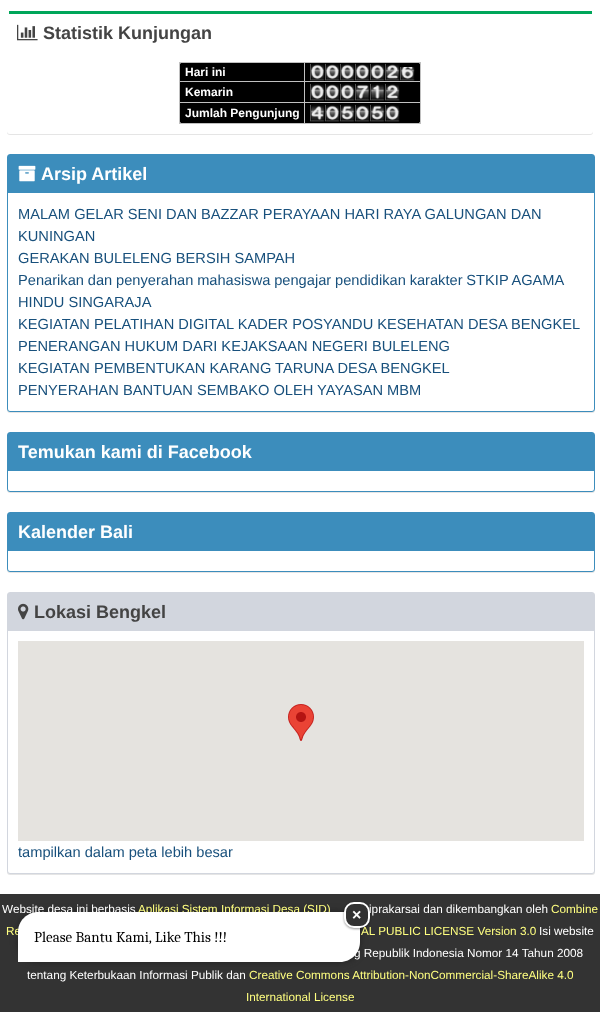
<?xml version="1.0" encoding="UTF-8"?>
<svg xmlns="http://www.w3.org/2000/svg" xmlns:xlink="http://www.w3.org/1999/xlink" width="600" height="1012">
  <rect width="100%" height="100%" fill="#ffffff" />
  <rect x="7" y="12" width="586" height="123" rx="3" fill="#000000" fill-opacity="0.1" filter="blur(0.5px)" />
  <rect x="7" y="11" width="586" height="123" rx="3" fill="#ffffff" />
  <rect x="9" y="11" width="583" height="3" fill="#00a65a" />
  <image x="17" y="24" width="21" height="17" xlink:href="image1.png" />
  <rect x="179" y="62" width="242" height="62" rx="5" fill="#000000" />
  <rect x="179" y="62" width="242" height="1" fill="#c0c0c0" />
  <rect x="420" y="62" width="1" height="62" fill="#c0c0c0" />
  <rect x="179" y="123" width="242" height="1" fill="#c0c0c0" />
  <rect x="179" y="62" width="1" height="62" fill="#c0c0c0" />
  <rect x="304" y="102" width="1" height="22" fill="#c0c0c0" />
  <rect x="304" y="102" width="117" height="1" fill="#c0c0c0" />
  <rect x="304" y="81" width="1" height="22" fill="#c0c0c0" />
  <rect x="304" y="81" width="117" height="1" fill="#c0c0c0" />
  <rect x="304" y="62" width="1" height="20" fill="#c0c0c0" />
  <rect x="179" y="81" width="126" height="1" fill="#c0c0c0" />
  <image x="310" y="63" width="15" height="18" xlink:href="image2.png" />
  <image x="325" y="63" width="15" height="18" xlink:href="image2.png" />
  <image x="340" y="63" width="15" height="18" xlink:href="image2.png" />
  <image x="355" y="63" width="15" height="18" xlink:href="image2.png" />
  <image x="370" y="63" width="15" height="18" xlink:href="image2.png" />
  <image x="385" y="63" width="15" height="18" xlink:href="image3.png" />
  <image x="400" y="67" width="15" height="14" xlink:href="image4.png" />
  <rect x="179" y="102" width="126" height="1" fill="#c0c0c0" />
  <image x="310" y="83" width="15" height="18" xlink:href="image2.png" />
  <image x="325" y="83" width="15" height="18" xlink:href="image2.png" />
  <image x="340" y="83" width="15" height="18" xlink:href="image2.png" />
  <image x="355" y="83" width="15" height="18" xlink:href="image5.png" />
  <image x="370" y="83" width="15" height="18" xlink:href="image6.png" />
  <image x="385" y="83" width="15" height="18" xlink:href="image7.png" />
  <image x="310" y="104" width="15" height="18" xlink:href="image8.png" />
  <image x="325" y="104" width="15" height="18" xlink:href="image2.png" />
  <image x="340" y="104" width="15" height="18" xlink:href="image9.png" />
  <image x="355" y="104" width="15" height="18" xlink:href="image2.png" />
  <image x="370" y="104" width="15" height="18" xlink:href="image9.png" />
  <image x="385" y="104" width="15" height="18" xlink:href="image10.png" />
  <rect x="7" y="155" width="588" height="258" rx="3" fill="#000000" fill-opacity="0.1" filter="blur(0.5px)" />
  <rect x="7.5" y="154.5" width="587" height="257" rx="2.5" fill="#ffffff" stroke="#3c8dbc" />
  <rect x="8" y="155" width="586" height="38" fill="#3c8dbc" />
  <image x="18" y="165" width="18" height="17" xlink:href="image11.png" />
  <rect x="7" y="433" width="588" height="60" rx="3" fill="#000000" fill-opacity="0.1" filter="blur(0.5px)" />
  <rect x="7.5" y="432.5" width="587" height="59" rx="2.5" fill="#ffffff" stroke="#3c8dbc" />
  <rect x="8" y="433" width="586" height="38" fill="#3c8dbc" />
  <rect y="894" width="600" height="118" fill="#333333" />
  <rect x="18" y="912" width="342" height="50" rx="20" fill="#222222" filter="blur(3.5px)" />
  <rect x="7" y="513" width="588" height="60" rx="3" fill="#000000" fill-opacity="0.1" filter="blur(0.5px)" />
  <rect x="7.5" y="512.5" width="587" height="59" rx="2.5" fill="#ffffff" stroke="#3c8dbc" />
  <rect x="8" y="513" width="586" height="38" fill="#3c8dbc" />
  <rect x="7" y="593" width="588" height="282" rx="3" fill="#000000" fill-opacity="0.1" filter="blur(0.5px)" />
  <rect x="7.5" y="592.5" width="587" height="281" rx="2.5" fill="#ffffff" stroke="#d2d6de" />
  <rect x="8" y="593" width="586" height="38" fill="#d2d6de" />
  <image x="18" y="603" width="11" height="17" xlink:href="image12.png" />
  <rect x="18" y="641" width="566" height="200" fill="#e5e3df" />
  <image x="288" y="704" width="26" height="37" xlink:href="image13.png" />
  <text x="43" y="39" style="font-family: Liberation Sans; font-size: 18px; font-weight: bold; fill: #444444">Statistik Kunjungan</text>
  <text x="185" y="76" style="font-family: Liberation Sans; font-size: 12px; font-weight: bold; fill: #ffffff">Hari ini</text>
  <text x="185" y="96" style="font-family: Liberation Sans; font-size: 12px; font-weight: bold; fill: #ffffff">Kemarin</text>
  <text x="185" y="117" style="font-family: Liberation Sans; font-size: 12px; font-weight: bold; fill: #ffffff">Jumlah Pengunjung</text>
  <text x="41" y="180" style="font-family: Liberation Sans; font-size: 18px; font-weight: bold; fill: #ffffff">Arsip Artikel</text>
  <text x="18" y="219" style="font-family: Liberation Sans; font-size: 14.65px; fill: #18507c">MALAM GELAR SENI DAN BAZZAR PERAYAAN HARI RAYA GALUNGAN DAN</text>
  <text x="18" y="241" style="font-family: Liberation Sans; font-size: 14.65px; fill: #18507c">KUNINGAN</text>
  <text x="18" y="263" style="font-family: Liberation Sans; font-size: 14.65px; fill: #18507c">GERAKAN BULELENG BERSIH SAMPAH</text>
  <text x="18" y="285" word-spacing="-0.25" style="font-family: Liberation Sans; font-size: 14.65px; fill: #18507c">Penarikan dan penyerahan mahasiswa pengajar pendidikan karakter STKIP AGAMA</text>
  <text x="18" y="307" style="font-family: Liberation Sans; font-size: 14.65px; fill: #18507c">HINDU SINGARAJA</text>
  <text x="18" y="329" style="font-family: Liberation Sans; font-size: 14.65px; fill: #18507c">KEGIATAN PELATIHAN DIGITAL KADER POSYANDU KESEHATAN DESA BENGKEL</text>
  <text x="18" y="351" style="font-family: Liberation Sans; font-size: 14.65px; fill: #18507c">PENERANGAN HUKUM DARI KEJAKSAAN NEGERI BULELENG</text>
  <text x="18" y="373" style="font-family: Liberation Sans; font-size: 14.65px; fill: #18507c">KEGIATAN PEMBENTUKAN KARANG TARUNA DESA BENGKEL</text>
  <text x="18" y="395" style="font-family: Liberation Sans; font-size: 14.65px; fill: #18507c">PENYERAHAN BANTUAN SEMBAKO OLEH YAYASAN MBM</text>
  <text x="18" y="458" style="font-family: Liberation Sans; font-size: 18px; font-weight: bold; fill: #ffffff">Temukan kami di Facebook</text>
  <text x="18" y="538" style="font-family: Liberation Sans; font-size: 18px; font-weight: bold; fill: #ffffff">Kalender Bali</text>
  <text x="34" y="618" style="font-family: Liberation Sans; font-size: 18px; font-weight: bold; fill: #444444">Lokasi Bengkel</text>
  <text x="18" y="857" style="font-family: Liberation Sans; font-size: 14.65px; fill: #18507c">tampilkan dalam peta lebih besar</text>
  <text x="2" y="913" style="font-family: Liberation Sans; font-size: 11.75px; fill: #ffffff">Website desa ini berbasis</text>
  <text x="138" y="913" style="font-family: Liberation Sans; font-size: 11.75px; fill: #ffff80">Aplikasi Sistem Informasi Desa (SID)</text>
  <text x="369" y="913" style="font-family: Liberation Sans; font-size: 11.75px; fill: #ffffff">iprakarsai dan dikembangkan oleh</text>
  <text x="551" y="913" style="font-family: Liberation Sans; font-size: 11.75px; fill: #ffff80">Combine</text>
  <text x="6" y="935" style="font-family: Liberation Sans; font-size: 11.75px; fill: #ffff80">Re</text>
  <path d="M 38 912 h 322 v 30 c 0 11 -9 20 -20 20 h -322 v -30 c 0 -11 9 -20 20 -20 z" fill="#ffffff" />
  <rect x="344" y="903" width="26" height="26" rx="10" fill="#000000" fill-opacity="0.4" filter="blur(1px)" />
  <text x="155" y="942" style="font-family: Caladea; font-size: 15px; fill: #000000">Like This !!!</text>
  <text x="34" y="942" style="font-family: Caladea; font-size: 15px; fill: #000000">Please Bantu Kami,</text>
  <text x="361" y="935" style="font-family: Liberation Sans; font-size: 11.75px; fill: #ffff80">AL PUBLIC LICENSE Version 3.0</text>
  <rect x="345" y="903" width="24" height="24" rx="9" fill="#333333" stroke="#ffffff" stroke-width="2" />
  <text x="352" y="920" style="font-family: Liberation Sans; font-size: 16px; font-weight: bold; fill: #ffffff">×</text>
  <text x="539" y="935" style="font-family: Liberation Sans; font-size: 11.75px; fill: #ffffff">Isi website</text>
  <text x="354" y="957" style="font-family: Liberation Sans; font-size: 11.75px; fill: #ffffff">g Republik Indonesia Nomor 14 Tahun 2008</text>
  <text x="27" y="979" style="font-family: Liberation Sans; font-size: 11.75px; fill: #ffffff">tentang Keterbukaan Informasi Publik dan</text>
  <text x="249" y="979" style="font-family: Liberation Sans; font-size: 11.75px; fill: #ffff80">Creative Commons Attribution-NonCommercial-ShareAlike 4.0</text>
  <text x="246" y="1001" style="font-family: Liberation Sans; font-size: 11.75px; fill: #ffff80">International License</text>
</svg>
